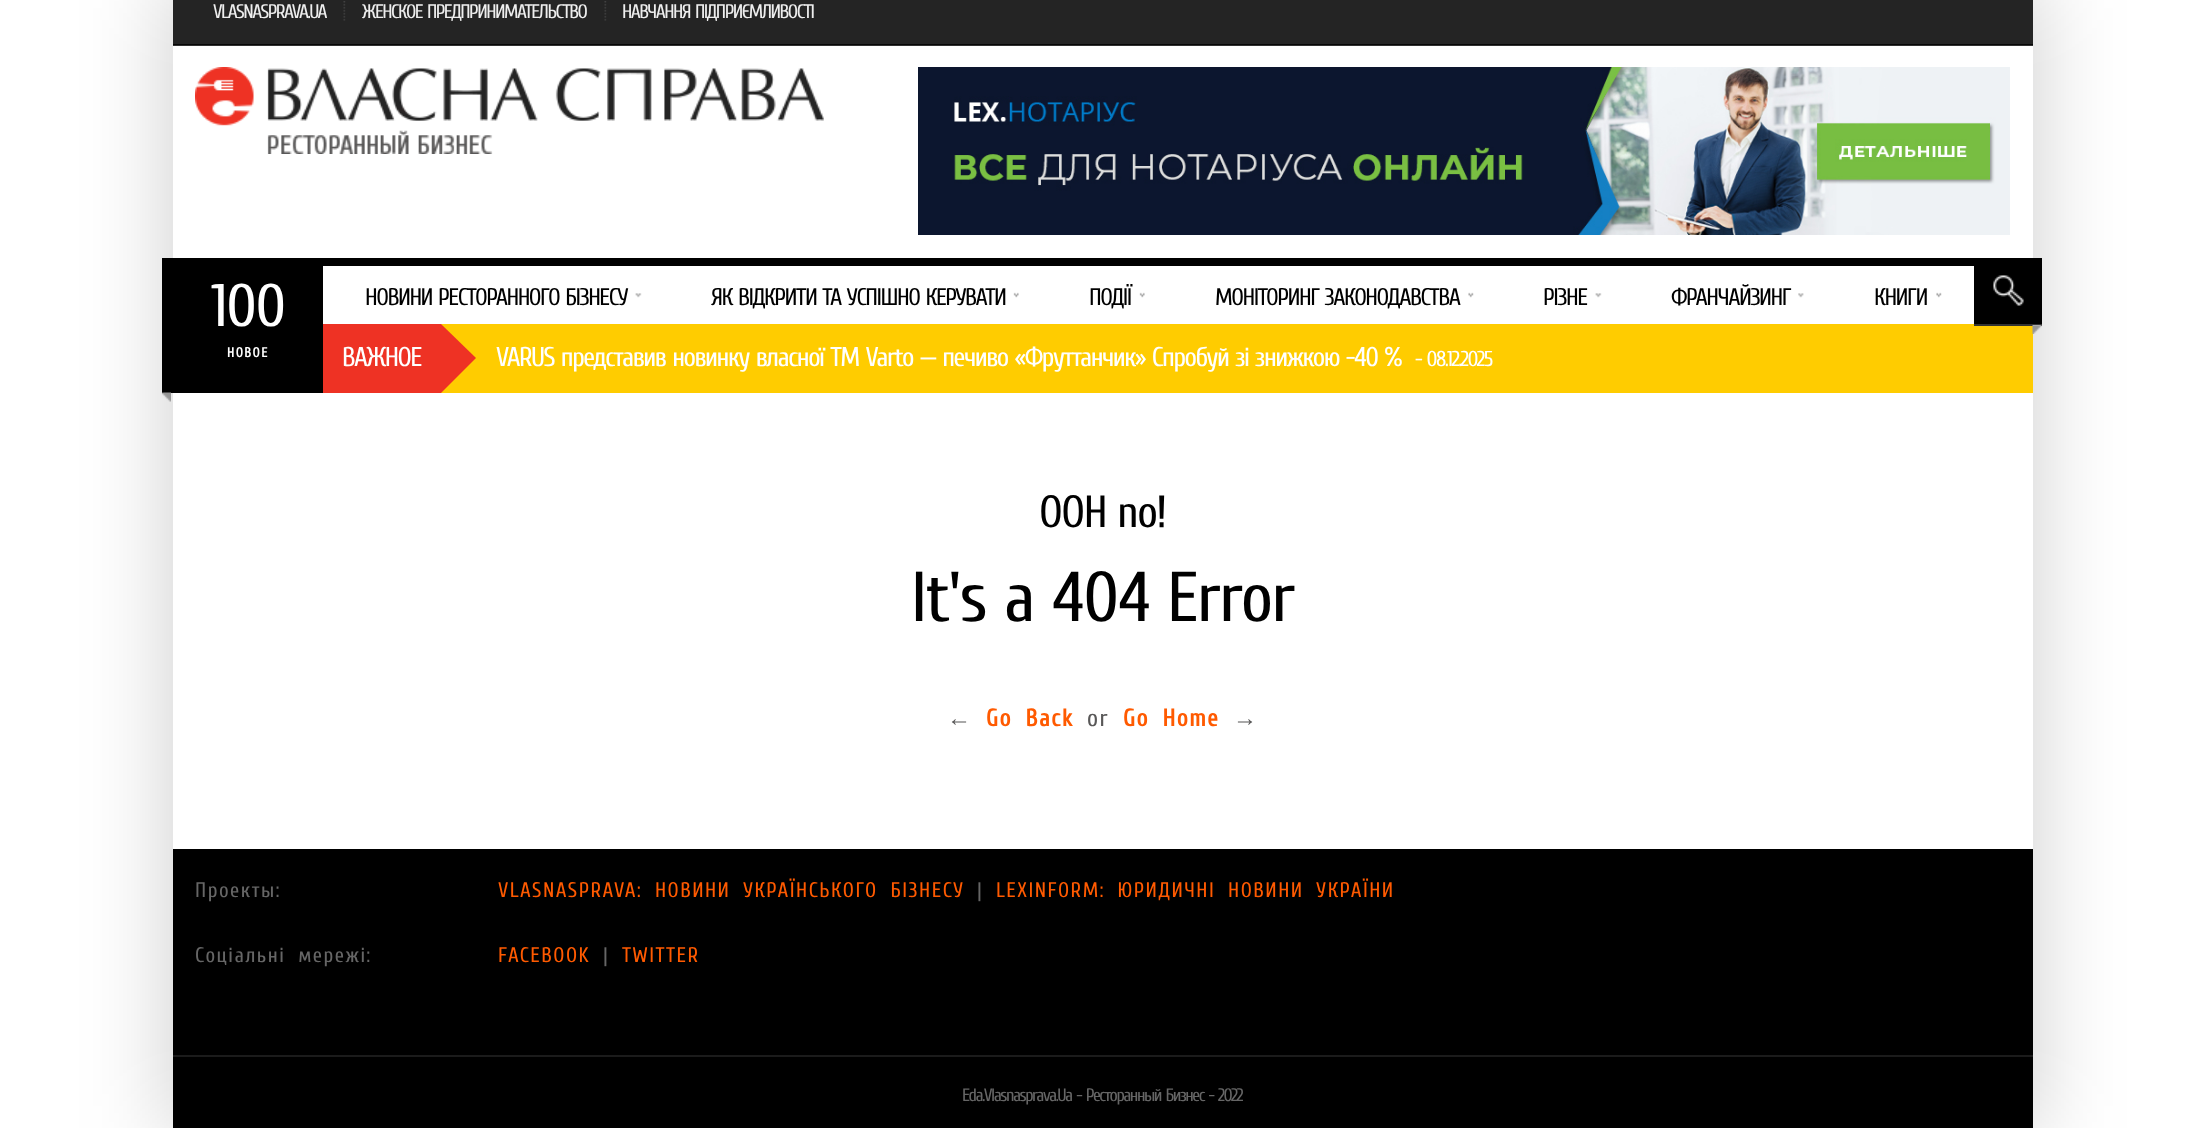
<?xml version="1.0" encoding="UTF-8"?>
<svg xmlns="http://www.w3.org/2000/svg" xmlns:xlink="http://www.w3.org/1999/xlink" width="2205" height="1128">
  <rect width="100%" height="100%" fill="#ffffff" />
  <rect x="173" y="-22" width="1860" height="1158" fill="#000000" fill-opacity="0.2" filter="blur(45px)" />
  <rect x="173" y="45" width="1860" height="804" fill="#ffffff" />
  <rect x="173" width="1860" height="45" fill="#242424" />
  <rect x="173" y="44" width="1860" height="2" fill="#000000" fill-opacity="0.81" />
  <image x="343" y="1" width="3" height="20" xlink:href="image1.png" />
  <image x="604" y="1" width="3" height="20" xlink:href="image1.png" />
  <image x="195" y="67" width="629" height="87" xlink:href="image2.png" />
  <image x="918" y="67" width="1092" height="168" xlink:href="image3.png" />
  <rect x="162" y="258" width="161" height="135" fill="#000000" />
  <image x="162" y="392" width="9" height="10" xlink:href="image4.png" />
  <rect x="323" y="258" width="1653" height="8" fill="#000000" />
  <image x="635" y="293" width="7" height="5" xlink:href="image5.png" />
  <image x="1013" y="292" width="6" height="6" xlink:href="image6.png" />
  <image x="1139" y="292" width="6" height="6" xlink:href="image6.png" />
  <image x="1468" y="292" width="6" height="6" xlink:href="image7.png" />
  <image x="1595" y="293" width="7" height="5" xlink:href="image5.png" />
  <image x="1798" y="293" width="6" height="5" xlink:href="image8.png" />
  <image x="1936" y="292" width="6" height="6" xlink:href="image7.png" />
  <rect x="441" y="324" width="1592" height="69" fill="#ffcc00" />
  <rect x="1974" y="258" width="68" height="68" fill="#000000" />
  <image x="1993" y="275" width="31" height="31" xlink:href="image9.png" />
  <image x="2032" y="325" width="10" height="9" xlink:href="image10.png" />
  <rect x="1974" y="324" width="68" height="2" fill="#ffffff" fill-opacity="0.2" />
  <rect x="323" y="324" width="118" height="69" fill="#ee3224" />
  <path d="M 441 393 v -69 l 35 34 z" fill="#ee3224" />
  <rect x="173" y="849" width="1860" height="206" fill="#000000" />
  <rect x="173" y="1057" width="1860" height="71" fill="#000000" />
  <rect x="173" y="1055" width="1860" height="2" fill="#1b1b1b" />
  <text x="213" y="18" style="font-family: Cuprum; font-size: 19.5px; letter-spacing: -1.5px; fill: #eeeeee">VLASNASPRAVA.UA</text>
  <text x="362" y="18" word-spacing="1.5" style="font-family: Cuprum; font-size: 19.5px; letter-spacing: -1.5px; fill: #eeeeee">ЖЕНСКОЕ ПРЕДПРИНИМАТЕЛЬСТВО</text>
  <text x="622" y="18" word-spacing="1.5" style="font-family: Cuprum; font-size: 19.5px; letter-spacing: -1.5px; fill: #eeeeee">НАВЧАННЯ ПІДПРИЄМЛИВОСТІ</text>
  <text x="211" y="326" style="font-family: Cuprum; font-size: 60px; letter-spacing: -1.5px; fill: #ffffff">100</text>
  <text x="227" y="357" style="font-family: Cuprum; font-size: 13.5px; font-weight: bold; letter-spacing: 1.5px; fill: #ffffff">НОВОЕ</text>
  <text x="365" y="305" word-spacing="1.5" style="font-family: Cuprum; font-size: 24px; letter-spacing: -1.5px; fill: #000000">НОВИНИ РЕСТОРАННОГО БІЗНЕСУ</text>
  <text x="711" y="305" word-spacing="1.5" style="font-family: Cuprum; font-size: 24px; letter-spacing: -1.5px; fill: #000000">ЯК ВІДКРИТИ ТА УСПІШНО КЕРУВАТИ</text>
  <text x="1089" y="305" style="font-family: Cuprum; font-size: 24px; letter-spacing: -1.5px; fill: #000000">ПОДІЇ</text>
  <text x="1215" y="305" word-spacing="1.5" style="font-family: Cuprum; font-size: 24px; letter-spacing: -1.5px; fill: #000000">МОНІТОРИНГ ЗАКОНОДАВСТВА</text>
  <text x="1543" y="305" style="font-family: Cuprum; font-size: 24px; letter-spacing: -1.5px; fill: #000000">РІЗНЕ</text>
  <text x="1671" y="305" style="font-family: Cuprum; font-size: 24px; letter-spacing: -1.5px; fill: #000000">ФРАНЧАЙЗИНГ</text>
  <text x="1874" y="305" style="font-family: Cuprum; font-size: 24px; letter-spacing: -1.5px; fill: #000000">КНИГИ</text>
  <text x="342" y="366" style="font-family: Cuprum; font-size: 27px; letter-spacing: -1.5px; fill: #ffffff">ВАЖНОЕ</text>
  <text x="496" y="366" word-spacing="1.5" style="font-family: Cuprum; font-size: 27px; letter-spacing: -1.5px; fill: #ffffff">VARUS представив новинку власної ТМ Varto — печиво «Фруттанчик» Спробуй зі знижкою -40 %</text>
  <text x="1415" y="366" word-spacing="1.5" style="font-family: Cuprum; font-size: 21.5px; letter-spacing: -1.5px; fill: #ffffff">- 08.12.2025</text>
  <text x="1039" y="527" word-spacing="1.5" style="font-family: Cuprum; font-size: 45px; letter-spacing: -1.5px; fill: #000000">OOH no!</text>
  <text x="911" y="621" word-spacing="1.5" style="font-family: Cuprum; font-size: 70.5px; letter-spacing: -1.5px; fill: #000000">It's a 404 Error</text>
  <text x="947" y="726" style="font-family: Liberation Serif; font-size: 24px; letter-spacing: 1.5px; fill: #595858">←</text>
  <text x="986" y="726" word-spacing="6" style="font-family: Cuprum; font-size: 24px; font-weight: bold; letter-spacing: 1.5px; fill: #ff5a00">Go Back</text>
  <text x="1087" y="726" style="font-family: Cuprum; font-size: 24px; letter-spacing: 1.5px; fill: #595858">or</text>
  <text x="1123" y="726" word-spacing="6" style="font-family: Cuprum; font-size: 24px; font-weight: bold; letter-spacing: 1.5px; fill: #ff5a00">Go Home</text>
  <text x="1233" y="726" style="font-family: Liberation Serif; font-size: 24px; letter-spacing: 1.5px; fill: #595858">→</text>
  <text x="195" y="897" style="font-family: Cuprum; font-size: 21px; letter-spacing: 1.5px; fill: #666666">Проекты:</text>
  <text x="498" y="897" word-spacing="6" style="font-family: Cuprum; font-size: 21px; letter-spacing: 1.5px; fill: #ff5a00">VLASNASPRAVA: НОВИНИ УКРАЇНСЬКОГО БІЗНЕСУ</text>
  <text x="977" y="897" style="font-family: Cuprum; font-size: 21px; letter-spacing: 1.5px; fill: #666666">|</text>
  <text x="996" y="897" word-spacing="6" style="font-family: Cuprum; font-size: 21px; letter-spacing: 1.5px; fill: #ff5a00">LEXINFORM: ЮРИДИЧНІ НОВИНИ УКРАЇНИ</text>
  <text x="195" y="962" word-spacing="6" style="font-family: Cuprum; font-size: 21px; letter-spacing: 1.5px; fill: #666666">Соціальні мережі:</text>
  <text x="498" y="962" style="font-family: Cuprum; font-size: 21px; letter-spacing: 1.5px; fill: #ff5a00">FACEBOOK</text>
  <text x="603" y="962" style="font-family: Cuprum; font-size: 21px; letter-spacing: 1.5px; fill: #666666">|</text>
  <text x="622" y="962" style="font-family: Cuprum; font-size: 21px; letter-spacing: 1.5px; fill: #ff5a00">TWITTER</text>
  <text x="962" y="1101" word-spacing="1.5" style="font-family: Cuprum; font-size: 18px; letter-spacing: -1.5px; fill: #666666">Eda.Vlasnasprava.Ua - Ресторанный Бизнес - 2022</text>
</svg>
